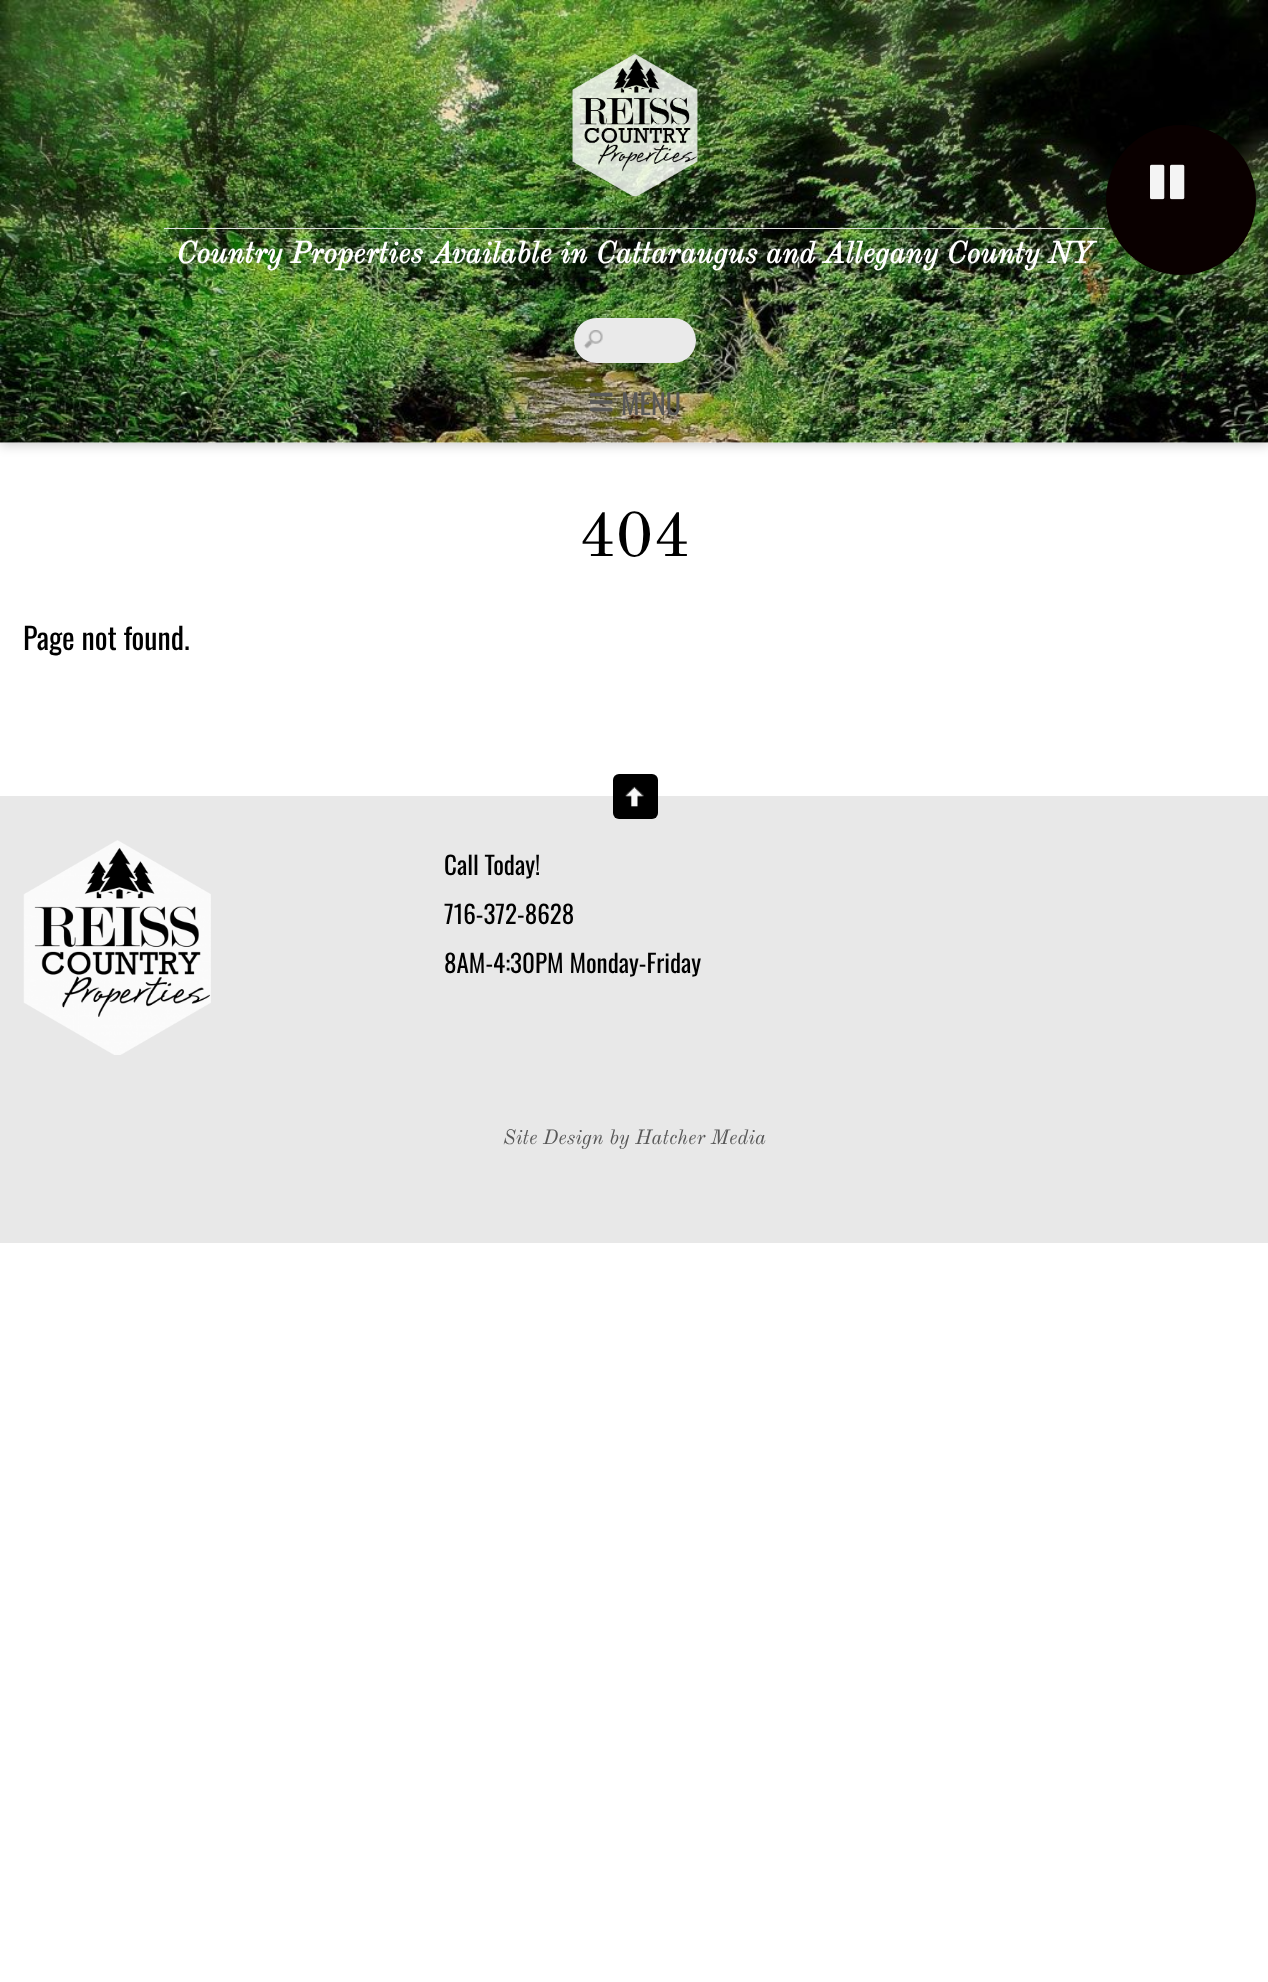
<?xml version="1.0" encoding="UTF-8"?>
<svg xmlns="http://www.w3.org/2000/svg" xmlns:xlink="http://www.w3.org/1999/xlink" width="1268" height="1982">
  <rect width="100%" height="100%" fill="#ffffff" />
  <rect y="3" width="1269" height="442" fill="#000000" fill-opacity="0.2" filter="blur(6px)" />
  <rect y="442" width="1268" height="1" fill="#ffffff" />
  <image x="0" y="0" width="1268" height="443" xlink:href="image2.png" />
  <circle cx="1181" cy="200" r="75" fill="#0a0000" />
  <image x="1150" y="164" width="35" height="36" xlink:href="image1.png" />
  <image x="572" y="53" width="126" height="144" xlink:href="image3.png" />
  <rect x="164" y="228" width="941" height="1" fill="#e5e5e5" />
  <rect x="574" y="318" width="122" height="45" rx="22.5" fill="#eaeaea" />
  <image x="583" y="330" width="20" height="19" xlink:href="image4.png" />
  <image x="590" y="392" width="23" height="20" xlink:href="image5.png" />
  <rect y="796" width="1268" height="447" fill="#e8e8e8" />
  <rect x="613" y="774" width="45" height="45" rx="6" fill="#000000" />
  <image x="625" y="786" width="19" height="21" xlink:href="image6.png" />
  <image x="23" y="840" width="188" height="215" xlink:href="image7.png" />
  <text x="176" y="263" style="font-family: Old Standard TT; font-size: 30px; font-weight: bold; font-style: italic; fill: #ffffff">Country Properties Available in Cattaraugus and Allegany County NY</text>
  <text x="621" y="415" style="font-family: Oswald; font-size: 28px; fill: #585858">MENU</text>
  <text x="579" y="556" style="font-family: Old Standard TT; font-size: 64px; fill: #000000">404</text>
  <text x="23" y="650" style="font-family: Oswald; font-size: 30px; fill: #000000">Page not found.</text>
  <text x="444" y="875" style="font-family: Oswald; font-size: 25.1px; fill: #000000">Call Today!</text>
  <text x="444" y="924" style="font-family: Oswald; font-size: 25.1px; fill: #000000">716-372-8628</text>
  <text x="444" y="973" style="font-family: Oswald; font-size: 25.1px; fill: #000000">8AM-4:30PM Monday-Friday</text>
  <text x="503" y="1144" style="font-family: Old Standard TT; font-size: 20.4px; font-style: italic; fill: #585858">Site Design by Hatcher Media</text>
</svg>
